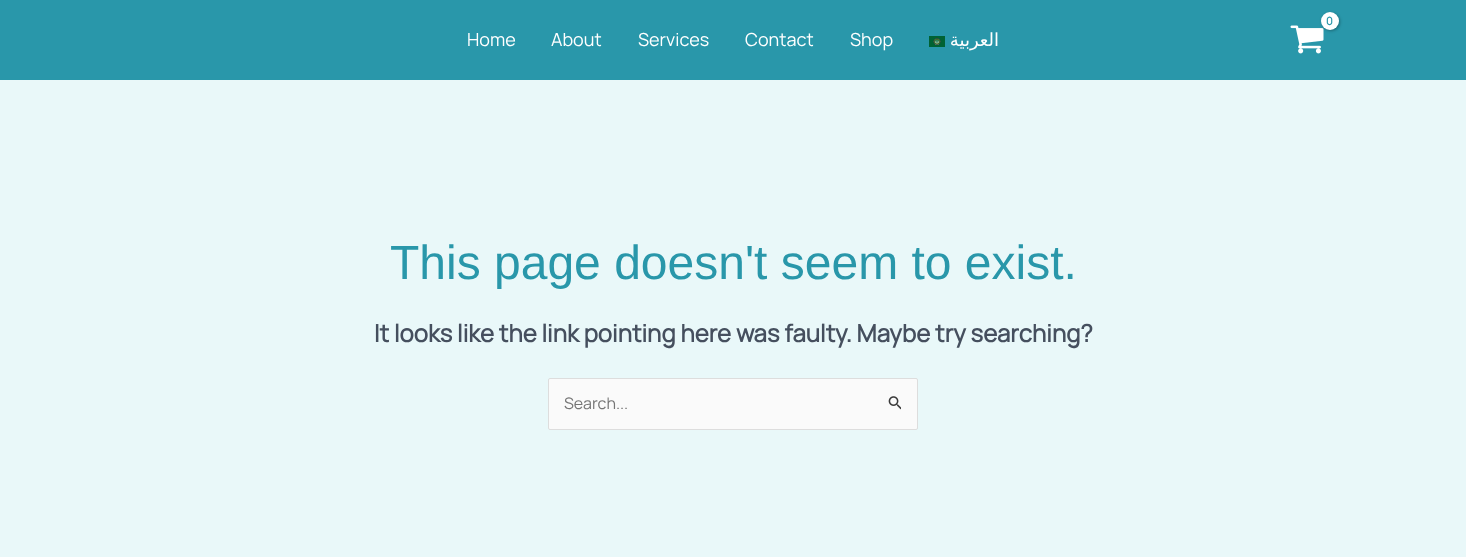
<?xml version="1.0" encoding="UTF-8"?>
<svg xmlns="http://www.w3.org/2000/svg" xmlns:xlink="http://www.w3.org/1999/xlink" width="1466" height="557">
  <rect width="100%" height="100%" fill="#e9f8f9" />
  <rect width="1466" height="80" fill="#2997aa" />
  <image x="1290" y="25" width="34" height="29" xlink:href="image1.png" />
  <rect x="1322" y="13" width="18" height="18" rx="9" fill="#000000" fill-opacity="0.3" filter="blur(1.5px)" />
  <circle cx="1330" cy="21" r="9" fill="#ffffff" />
  <image x="929" y="36" width="16" height="11" xlink:href="image2.png" />
  <rect x="548.5" y="378.5" width="369" height="51" rx="1.5" fill="#fafafa" stroke="#dddddd" />
  <image x="888" y="396" width="13" height="14" xlink:href="image3.png" />
  <text x="1326" y="25" style="font-family: Manrope; font-size: 11px; font-weight: bold; fill: #2997aa">0</text>
  <text x="467" y="46" style="font-family: Manrope; font-size: 18px; font-weight: 200; fill: #ffffff">Home</text>
  <text x="551" y="46" style="font-family: Manrope; font-size: 18px; font-weight: 200; fill: #ffffff">About</text>
  <text x="638" y="46" style="font-family: Manrope; font-size: 18px; font-weight: 200; fill: #ffffff">Services</text>
  <text x="745" y="46" style="font-family: Manrope; font-size: 18px; font-weight: 200; fill: #ffffff">Contact</text>
  <text x="850" y="46" style="font-family: Manrope; font-size: 18px; font-weight: 200; fill: #ffffff">Shop</text>
  <text x="999" y="46" style="font-family: DejaVu Sans; font-size: 18px; direction: rtl; fill: #ffffff">العربية</text>
  <text x="390" y="279" style="font-family: Liberation Sans; font-size: 48px; fill: #2997aa">This page doesn't seem to exist.</text>
  <text x="374" y="342" style="font-family: Manrope; font-size: 24px; font-weight: bold; fill: #454f5e">It looks like the link pointing here was faulty. Maybe try searching?</text>
  <text x="564" y="409" style="font-family: Manrope; font-size: 16px; font-weight: 200; fill: #757575">Search...</text>
</svg>
